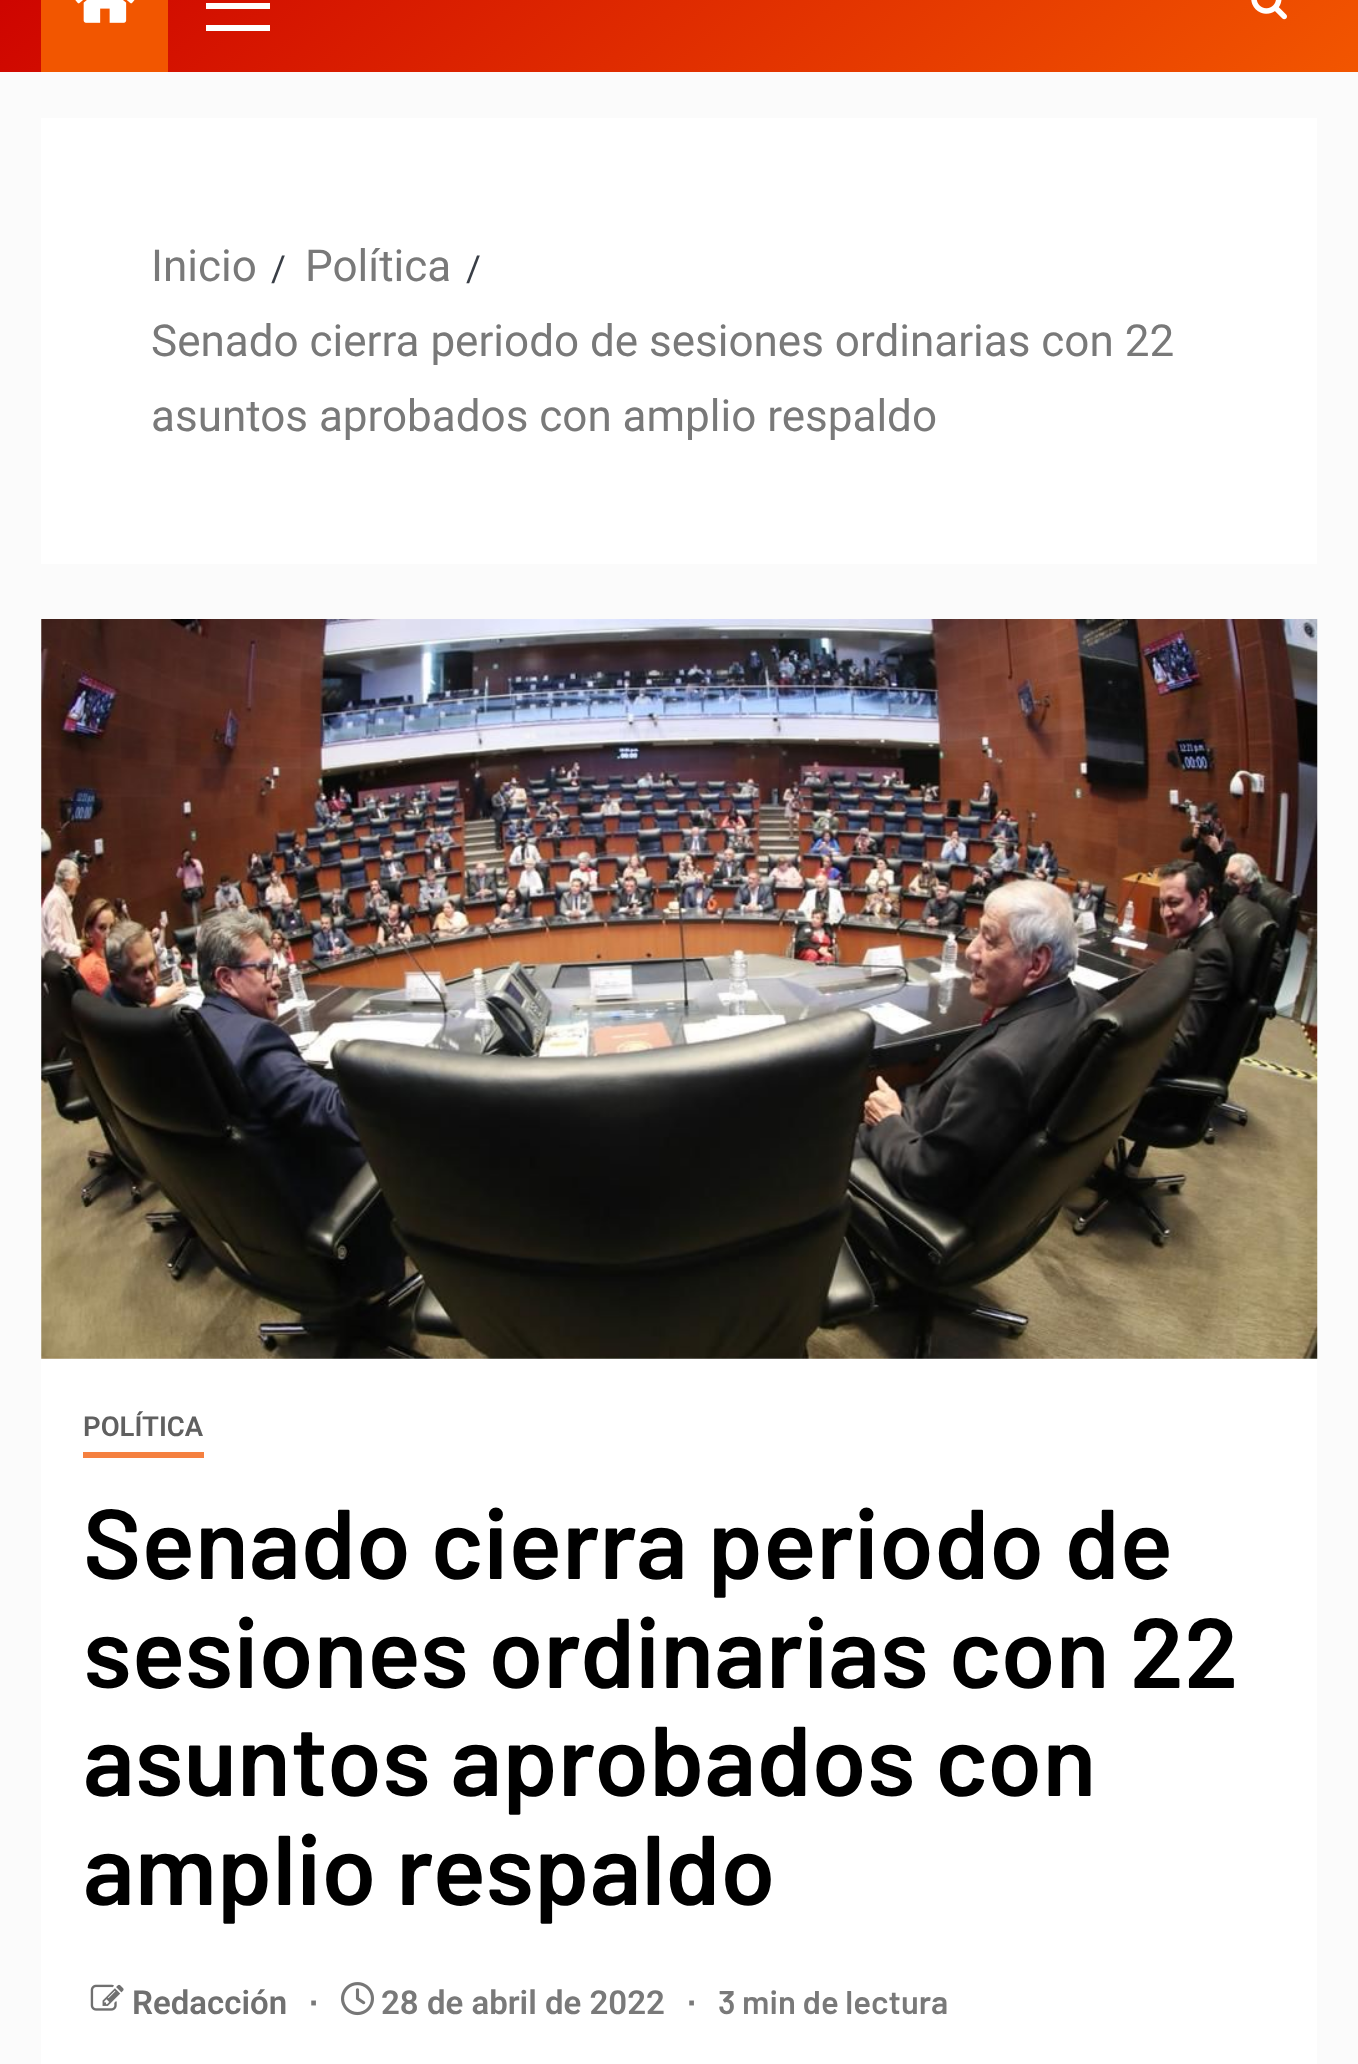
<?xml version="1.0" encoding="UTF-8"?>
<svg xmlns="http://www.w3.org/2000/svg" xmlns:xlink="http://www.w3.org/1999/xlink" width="1358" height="2064">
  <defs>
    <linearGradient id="g1" gradientUnits="userSpaceOnUse" x1="365" y1="-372" x2="994" y2="378"><stop offset="0" stop-color="#cc0000" /><stop offset="1" stop-color="#f25600" /></linearGradient>
  </defs>
  <rect width="100%" height="100%" fill="#fbfbfb" />
  <rect width="1358" height="72" fill="url(#g1)" />
  <rect x="41" width="127" height="72" fill="#f25600" />
  <image x="75" y="0" width="60" height="23" xlink:href="image1.png" />
  <rect x="206" y="3" width="64" height="6" fill="#ffffff" />
  <rect x="206" y="25" width="64" height="6" fill="#ffffff" />
  <image x="1251" y="0" width="36" height="20" xlink:href="image2.png" />
  <rect x="41" y="118" width="1276" height="446" fill="#ffffff" />
  <rect x="41" y="619" width="1276" height="1445" fill="#ffffff" />
  <image x="41" y="619" width="1277" height="740" xlink:href="image3.png" />
  <rect x="83" y="1452" width="121" height="6" fill="#f58040" />
  <image x="90" y="1984" width="34" height="27" xlink:href="image4.png" />
  <image x="341" y="1982" width="33" height="34" xlink:href="image5.png" />
  <text x="151" y="281" style="font-family: Roboto; font-size: 44px; fill: #797979">Inicio</text>
  <text x="271" y="281" style="font-family: Roboto; font-size: 36px; fill: #393e46">/</text>
  <text x="305" y="281" style="font-family: Roboto; font-size: 44px; fill: #797979">Política</text>
  <text x="466" y="281" style="font-family: Roboto; font-size: 36px; fill: #393e46">/</text>
  <text x="151" y="356" style="font-family: Roboto; font-size: 44px; fill: #797979">Senado cierra periodo de sesiones ordinarias con 22</text>
  <text x="151" y="431" style="font-family: Roboto; font-size: 44px; fill: #797979">asuntos aprobados con amplio respaldo</text>
  <text x="83" y="1436" style="font-family: Roboto; font-size: 27.5px; font-weight: 600; fill: #606060">POLÍTICA</text>
  <text x="83" y="1579" style="font-family: Barlow; font-size: 99px; font-weight: 600; fill: #000000">Senado cierra periodo de</text>
  <text x="83" y="1688" style="font-family: Barlow; font-size: 99px; font-weight: 600; fill: #000000">sesiones ordinarias con 22</text>
  <text x="83" y="1796" style="font-family: Barlow; font-size: 99px; font-weight: 600; fill: #000000">asuntos aprobados con</text>
  <text x="83" y="1905" style="font-family: Barlow; font-size: 99px; font-weight: 600; fill: #000000">amplio respaldo</text>
  <text x="132" y="2014" style="font-family: Roboto; font-size: 33px; font-weight: 600; fill: #707070">Redacción</text>
  <text x="309" y="2014" style="font-family: Liberation Sans; font-size: 33px; font-weight: bold; fill: #797979">∙</text>
  <text x="381" y="2014" style="font-family: Roboto; font-size: 33px; font-weight: 600; fill: #797979">28 de abril de 2022</text>
  <text x="687" y="2014" style="font-family: Liberation Sans; font-size: 33px; font-weight: bold; fill: #797979">∙</text>
  <text x="718" y="2014" style="font-family: Barlow; font-size: 33px; font-weight: 600; fill: #797979">3 min de lectura</text>
</svg>
